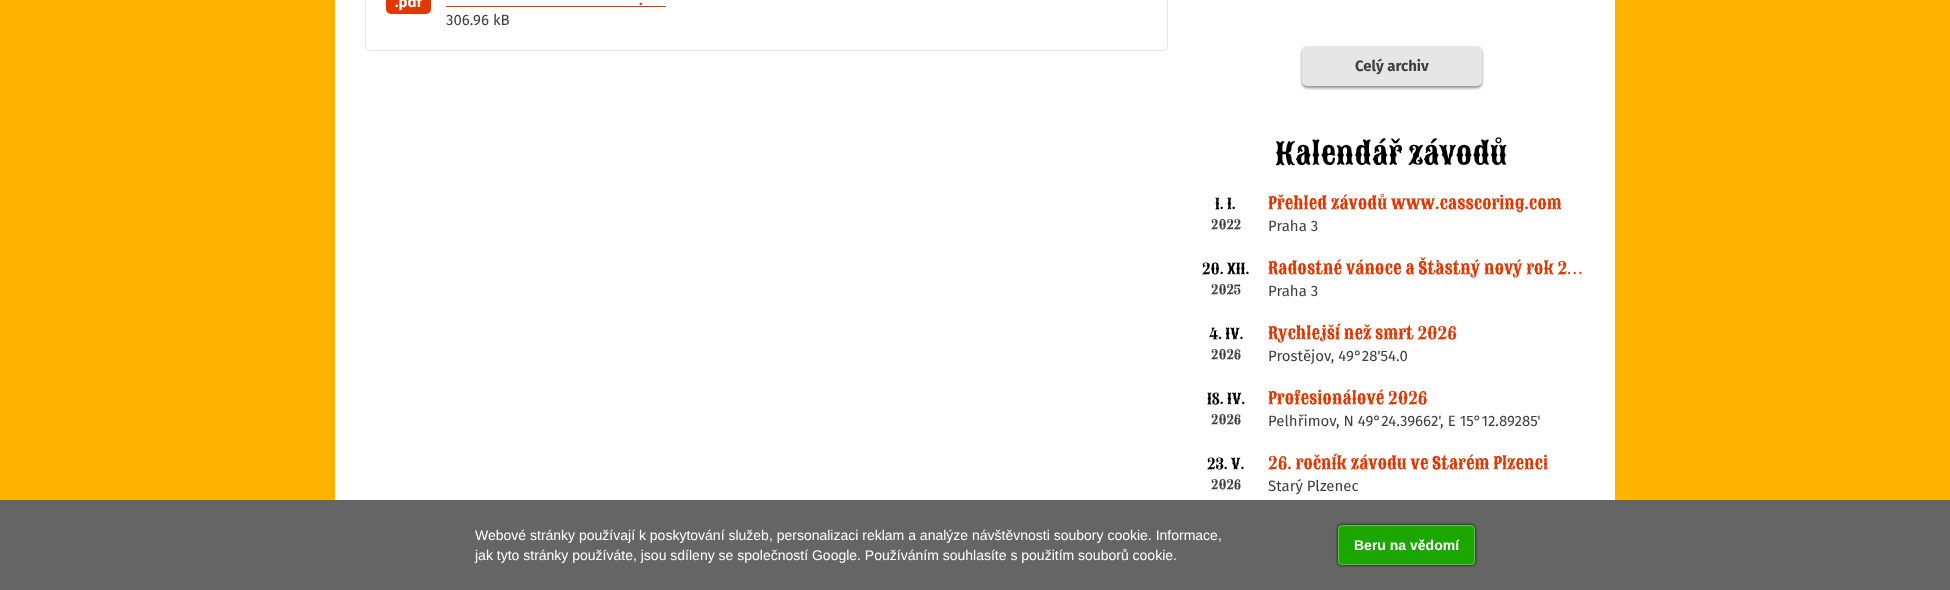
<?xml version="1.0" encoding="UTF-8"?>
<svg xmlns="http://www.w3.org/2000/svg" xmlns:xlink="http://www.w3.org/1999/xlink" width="1950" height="590">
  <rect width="100%" height="100%" fill="#ffb300" />
  <rect x="335" width="1280" height="500" fill="#ffffff" />
  <rect x="365.5" y="-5.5" width="802" height="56" rx="4.5" fill="none" stroke="#e6e6e6" />
  <rect x="386" y="-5" width="45" height="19" rx="5" fill="#e33600" />
  <rect x="446" y="6" width="220" height="1" fill="#e33600" />
  <rect x="1302" y="48" width="180" height="40" rx="5" fill="#000000" fill-opacity="0.45" filter="blur(1.5px)" />
  <rect x="1302" y="46" width="180" height="40" rx="5" fill="#e6e6e6" />
  <rect y="500" width="1950" height="90" fill="#656565" />
  <rect x="1338" y="525" width="137" height="40" rx="4" fill="#000000" filter="blur(1.5px)" />
  <rect x="1338" y="525" width="137" height="40" rx="4" fill="#1ba700" />
  <rect x="1338.5" y="525.5" width="136" height="39" rx="3.5" fill="none" stroke="#ffffff" stroke-opacity="0.3" />
  <text x="395" y="7" style="font-family: Fira Sans; font-size: 15px; font-weight: bold; fill: #ffffff">.pdf</text>
  <text x="639" y="5" style="font-family: Fira Sans; font-size: 15px; font-weight: bold; fill: #e33600">.</text>
  <text x="446" y="25" style="font-family: Fira Sans; font-size: 15px; fill: #404040">306.96 kB</text>
  <text x="1355" y="71" style="font-family: Fira Sans; font-size: 15px; font-weight: bold; fill: #404040">Celý archiv</text>
  <text x="1275" y="164" style="font-family: Sancreek; font-size: 30px; fill: #000000">Kalendář závodů</text>
  <text x="1215" y="209" style="font-family: Sancreek; font-size: 15px; fill: #000000">1. I.</text>
  <text x="1211" y="229" style="font-family: Sancreek; font-size: 13px; fill: #404040">2022</text>
  <text x="1268" y="209" style="font-family: Sancreek; font-size: 17px; fill: #e33600">Přehled závodů www.casscoring.com</text>
  <text x="1268" y="231" style="font-family: Fira Sans; font-size: 15px; fill: #404040">Praha 3</text>
  <text x="1202" y="274" style="font-family: Sancreek; font-size: 15px; fill: #000000">20. XII.</text>
  <text x="1211" y="294" style="font-family: Sancreek; font-size: 13px; fill: #404040">2025</text>
  <text x="1268" y="274" style="font-family: Sancreek; font-size: 17px; fill: #e33600">Radostné vánoce a Šťastný nový rok 2…</text>
  <text x="1268" y="296" style="font-family: Fira Sans; font-size: 15px; fill: #404040">Praha 3</text>
  <text x="1209" y="339" style="font-family: Sancreek; font-size: 15px; fill: #000000">4. IV.</text>
  <text x="1211" y="359" style="font-family: Sancreek; font-size: 13px; fill: #404040">2026</text>
  <text x="1268" y="339" style="font-family: Sancreek; font-size: 17px; fill: #e33600">Rychlejší než smrt 2026</text>
  <text x="1268" y="361" style="font-family: Fira Sans; font-size: 15px; fill: #404040">Prostějov, 49°28'54.0</text>
  <text x="1207" y="404" style="font-family: Sancreek; font-size: 15px; fill: #000000">18. IV.</text>
  <text x="1211" y="424" style="font-family: Sancreek; font-size: 13px; fill: #404040">2026</text>
  <text x="1268" y="404" style="font-family: Sancreek; font-size: 17px; fill: #e33600">Profesionálové 2026</text>
  <text x="1268" y="426" style="font-family: Fira Sans; font-size: 15px; fill: #404040">Pelhřimov, N 49°24.39662', E 15°12.89285'</text>
  <text x="1207" y="469" style="font-family: Sancreek; font-size: 15px; fill: #000000">23. V.</text>
  <text x="1211" y="489" style="font-family: Sancreek; font-size: 13px; fill: #404040">2026</text>
  <text x="1268" y="469" style="font-family: Sancreek; font-size: 17px; fill: #e33600">26. ročník závodu ve Starém Plzenci</text>
  <text x="1268" y="491" style="font-family: Fira Sans; font-size: 15px; fill: #404040">Starý Plzenec</text>
  <text x="475" y="540" style="font-family: Liberation Sans; font-size: 14px; fill: #ffffff">Webové stránky používají k poskytování služeb, personalizaci reklam a analýze návštěvnosti soubory cookie. Informace,</text>
  <text x="475" y="560" style="font-family: Liberation Sans; font-size: 14px; fill: #ffffff">jak tyto stránky používáte, jsou sdíleny se společností Google. Používáním souhlasíte s použitím souborů cookie.</text>
  <text x="1354" y="550" style="font-family: Liberation Sans; font-size: 14px; font-weight: bold; fill: #ffffff">Beru na vědomí</text>
</svg>
